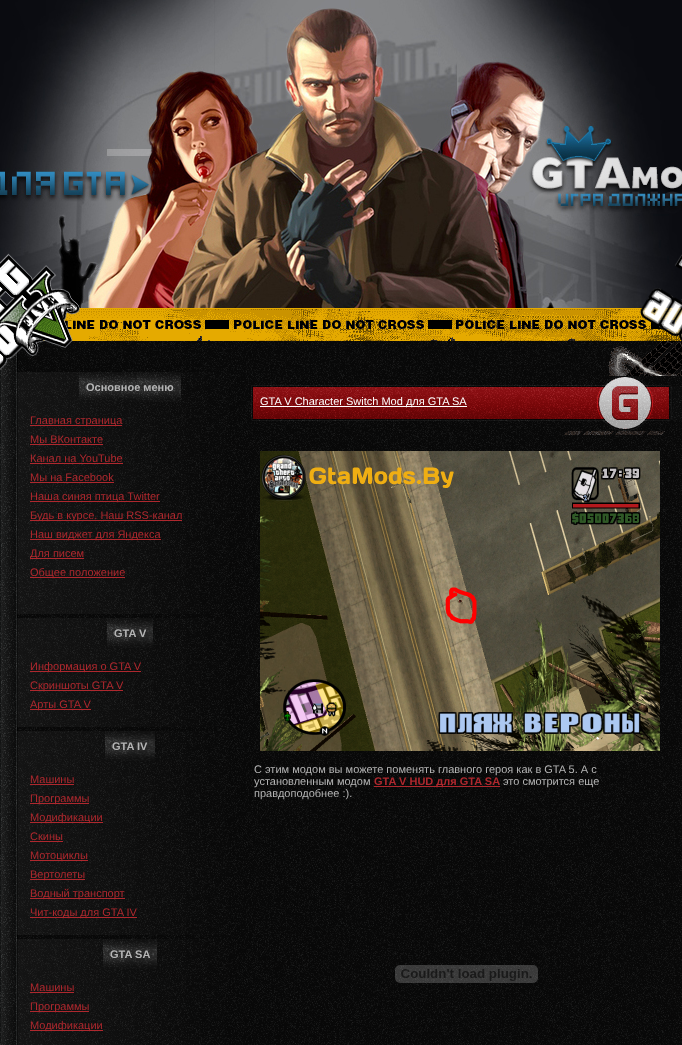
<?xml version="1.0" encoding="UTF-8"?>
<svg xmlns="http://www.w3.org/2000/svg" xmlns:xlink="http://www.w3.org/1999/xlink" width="682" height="1045">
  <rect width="100%" height="100%" fill="#ffffff" />
  <image x="0" y="0" width="682" height="308" xlink:href="image1.png" />
  <image x="0" y="336" width="682" height="709" xlink:href="image3.png" />
  <image x="42" y="308" width="640" height="127" xlink:href="image4.png" />
  <image x="0" y="253" width="682" height="118" xlink:href="image2.png" />
  <image x="17" y="372" width="213" height="242" xlink:href="image5.png" />
  <image x="79" y="372" width="102" height="30" xlink:href="image6.png" />
  <rect x="30" y="425" width="92" height="1" fill="#af282e" />
  <rect x="30" y="444" width="73" height="1" fill="#af282e" />
  <rect x="30" y="463" width="93" height="1" fill="#af282e" />
  <rect x="30" y="482" width="84" height="1" fill="#af282e" />
  <rect x="30" y="501" width="130" height="1" fill="#af282e" />
  <rect x="30" y="520" width="152" height="1" fill="#af282e" />
  <rect x="30" y="539" width="131" height="1" fill="#af282e" />
  <rect x="30" y="558" width="54" height="1" fill="#af282e" />
  <rect x="30" y="577" width="95" height="1" fill="#af282e" />
  <image x="17" y="618" width="213" height="109" xlink:href="image7.png" />
  <image x="107" y="618" width="46" height="30" xlink:href="image8.png" />
  <rect x="30" y="671" width="111" height="1" fill="#af282e" />
  <rect x="30" y="690" width="93" height="1" fill="#af282e" />
  <rect x="30" y="709" width="61" height="1" fill="#af282e" />
  <image x="17" y="731" width="213" height="204" xlink:href="image9.png" />
  <image x="105" y="731" width="50" height="30" xlink:href="image10.png" />
  <rect x="30" y="784" width="44" height="1" fill="#af282e" />
  <rect x="30" y="803" width="59" height="1" fill="#af282e" />
  <rect x="30" y="822" width="73" height="1" fill="#af282e" />
  <rect x="30" y="841" width="33" height="1" fill="#af282e" />
  <rect x="30" y="860" width="58" height="1" fill="#af282e" />
  <rect x="30" y="879" width="55" height="1" fill="#af282e" />
  <rect x="30" y="898" width="95" height="1" fill="#af282e" />
  <rect x="30" y="917" width="107" height="1" fill="#af282e" />
  <image x="17" y="939" width="213" height="106" xlink:href="image11.png" />
  <image x="103" y="939" width="54" height="30" xlink:href="image12.png" />
  <rect x="30" y="992" width="44" height="1" fill="#af282e" />
  <rect x="30" y="1011" width="59" height="1" fill="#af282e" />
  <rect x="30" y="1030" width="73" height="1" fill="#af282e" />
  <image x="250" y="376" width="432" height="55" xlink:href="image13.png" />
  <rect x="260" y="406" width="207" height="1" fill="#ffffff" />
  <image x="260" y="451" width="400" height="300" xlink:href="image14.png" />
  <rect x="374" y="786" width="126" height="1" fill="#af282e" />
  <image x="395" y="965" width="143" height="18" xlink:href="image15.png" />
  <text x="86" y="391" style="font-family: Liberation Sans; font-size: 11px; font-weight: bold; fill: #b5b5b5">Основное меню</text>
  <text x="30" y="424" style="font-family: Liberation Sans; font-size: 11px; fill: #af282e">Главная страница</text>
  <text x="30" y="443" style="font-family: Liberation Sans; font-size: 11px; fill: #af282e">Мы ВКонтакте</text>
  <text x="30" y="462" style="font-family: Liberation Sans; font-size: 11px; fill: #af282e">Канал на YouTube</text>
  <text x="30" y="481" style="font-family: Liberation Sans; font-size: 11px; fill: #af282e">Мы на Facebook</text>
  <text x="30" y="500" style="font-family: Liberation Sans; font-size: 11px; fill: #af282e">Наша синяя птица Twitter</text>
  <text x="30" y="519" style="font-family: Liberation Sans; font-size: 11px; fill: #af282e">Будь в курсе. Наш RSS-канал</text>
  <text x="30" y="538" style="font-family: Liberation Sans; font-size: 11px; fill: #af282e">Наш виджет для Яндекса</text>
  <text x="30" y="557" style="font-family: Liberation Sans; font-size: 11px; fill: #af282e">Для писем</text>
  <text x="30" y="576" style="font-family: Liberation Sans; font-size: 11px; fill: #af282e">Общее положение</text>
  <text x="114" y="637" style="font-family: Liberation Sans; font-size: 11px; font-weight: bold; fill: #b5b5b5">GTA V</text>
  <text x="30" y="670" style="font-family: Liberation Sans; font-size: 11px; fill: #af282e">Информация о GTA V</text>
  <text x="30" y="689" style="font-family: Liberation Sans; font-size: 11px; fill: #af282e">Скриншоты GTA V</text>
  <text x="30" y="708" style="font-family: Liberation Sans; font-size: 11px; fill: #af282e">Арты GTA V</text>
  <text x="112" y="750" style="font-family: Liberation Sans; font-size: 11px; font-weight: bold; fill: #b5b5b5">GTA IV</text>
  <text x="30" y="783" style="font-family: Liberation Sans; font-size: 11px; fill: #af282e">Машины</text>
  <text x="30" y="802" style="font-family: Liberation Sans; font-size: 11px; fill: #af282e">Программы</text>
  <text x="30" y="821" style="font-family: Liberation Sans; font-size: 11px; fill: #af282e">Модификации</text>
  <text x="30" y="840" style="font-family: Liberation Sans; font-size: 11px; fill: #af282e">Скины</text>
  <text x="30" y="859" style="font-family: Liberation Sans; font-size: 11px; fill: #af282e">Мотоциклы</text>
  <text x="30" y="878" style="font-family: Liberation Sans; font-size: 11px; fill: #af282e">Вертолеты</text>
  <text x="30" y="897" style="font-family: Liberation Sans; font-size: 11px; fill: #af282e">Водный транспорт</text>
  <text x="30" y="916" style="font-family: Liberation Sans; font-size: 11px; fill: #af282e">Чит-коды для GTA IV</text>
  <text x="110" y="958" style="font-family: Liberation Sans; font-size: 11px; font-weight: bold; fill: #b5b5b5">GTA SA</text>
  <text x="30" y="991" style="font-family: Liberation Sans; font-size: 11px; fill: #af282e">Машины</text>
  <text x="30" y="1010" style="font-family: Liberation Sans; font-size: 11px; fill: #af282e">Программы</text>
  <text x="30" y="1029" style="font-family: Liberation Sans; font-size: 11px; fill: #af282e">Модификации</text>
  <text x="260" y="405" style="font-family: Liberation Sans; font-size: 11px; fill: #ffffff">GTA V Character Switch Mod для GTA SA</text>
  <text x="254" y="773" style="font-family: Liberation Sans; font-size: 11px; fill: #b5b5b5">С этим модом вы можете поменять главного героя как в GTA 5. А с</text>
  <text x="254" y="785" style="font-family: Liberation Sans; font-size: 11px; fill: #b5b5b5">установленным модом</text>
  <text x="374" y="785" style="font-family: Liberation Sans; font-size: 11px; font-weight: bold; fill: #af282e">GTA V HUD для GTA SA</text>
  <text x="503" y="785" style="font-family: Liberation Sans; font-size: 11px; fill: #b5b5b5">это смотрится еще</text>
  <text x="254" y="797" style="font-family: Liberation Sans; font-size: 11px; fill: #b5b5b5">правдоподобнее :).</text>
</svg>
